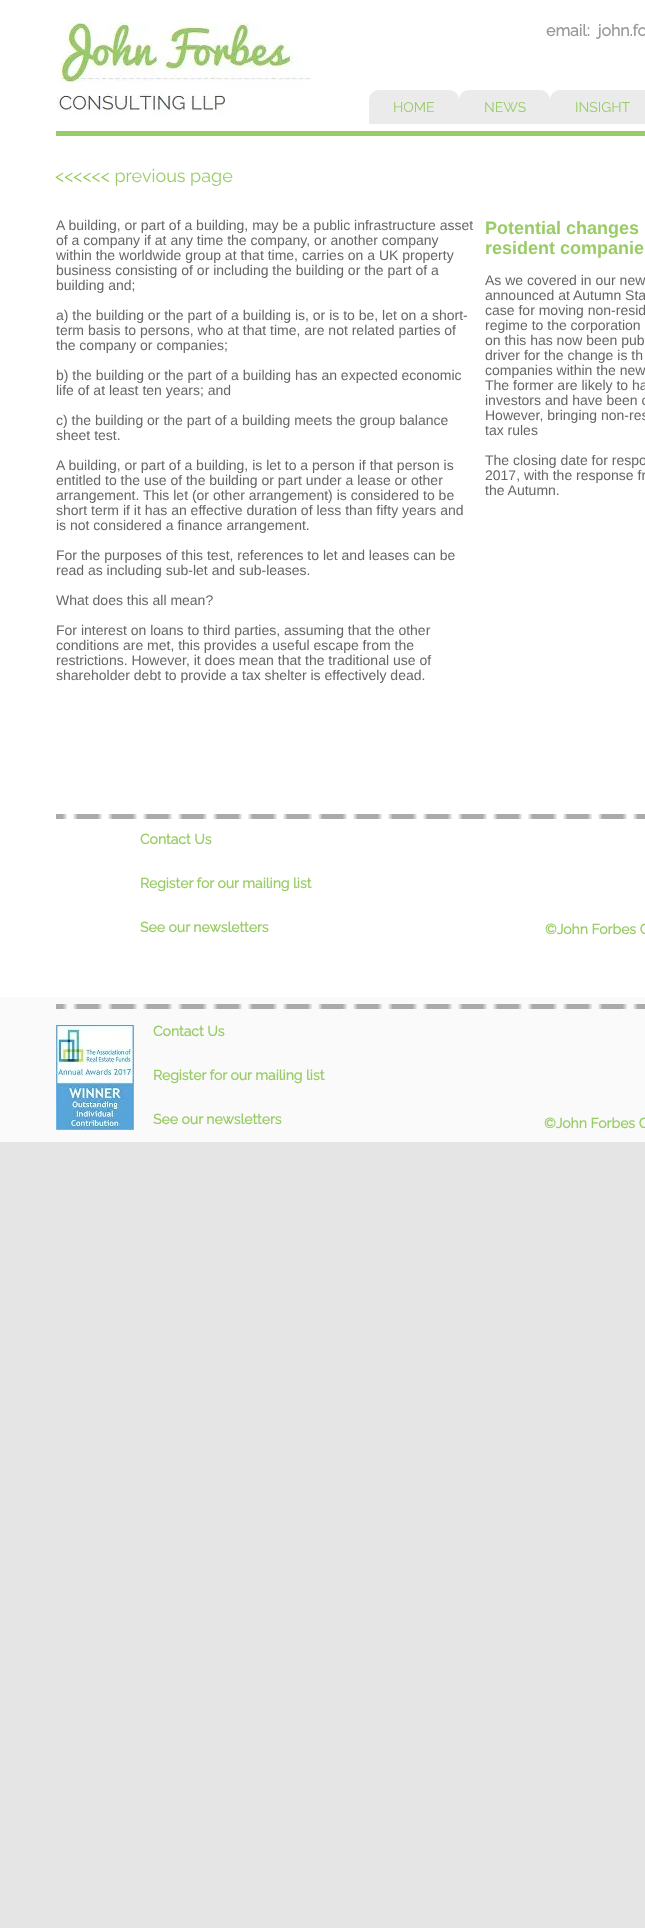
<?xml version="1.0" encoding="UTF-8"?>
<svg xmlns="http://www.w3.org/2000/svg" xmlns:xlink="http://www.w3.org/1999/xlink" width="645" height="1928">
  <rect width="100%" height="100%" fill="#e5e5e5" />
  <rect width="645" height="997" fill="#ffffff" />
  <image x="57" y="20" width="254" height="95" xlink:href="image1.png" />
  <path d="M 379 90 h 70 c 5.5 0 10 4.5 10 10 v 24 h -90 v -24 c 0 -5.5 4.5 -10 10 -10 z" fill="#ebebeb" />
  <path d="M 469 90 h 71 c 5.5 0 10 4.5 10 10 v 24 h -91 v -24 c 0 -5.5 4.5 -10 10 -10 z" fill="#ebebeb" />
  <path d="M 560 90 h 84 c 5.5 0 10 4.5 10 10 v 24 h -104 v -24 c 0 -5.5 4.5 -10 10 -10 z" fill="#ebebeb" />
  <rect x="56" y="131" width="589" height="5" fill="#99cc66" />
  <image x="56" y="814" width="589" height="5" xlink:href="image2.png" />
  <rect y="997" width="645" height="145" fill="#fafafa" />
  <image x="56" y="1004" width="589" height="5" xlink:href="image3.png" />
  <image x="56" y="1025" width="78" height="105" xlink:href="image4.png" />
  <text x="546" y="36" style="font-family: Raleway; font-size: 16px; font-weight: bold; fill: #999999" xml:space="preserve">email:  john.fo</text>
  <text x="393" y="112" style="font-family: Raleway; font-size: 14px; font-weight: 100; fill: #99cc66">HOME</text>
  <text x="484" y="112" style="font-family: Raleway; font-size: 14px; font-weight: 100; fill: #99cc66">NEWS</text>
  <text x="575" y="112" style="font-family: Raleway; font-size: 14px; font-weight: 100; fill: #99cc66">INSIGHT</text>
  <text x="55" y="182" style="font-family: Raleway; font-size: 18px; font-weight: 100; fill: #99cc66">&lt;&lt;&lt;&lt;&lt;&lt; previous page</text>
  <text x="56" y="230" style="font-family: Liberation Sans; font-size: 14px; fill: #666666">A building, or part of a building, may be a public infrastructure asset</text>
  <text x="56" y="245" style="font-family: Liberation Sans; font-size: 14px; fill: #666666">of a company if at any time the company, or another company</text>
  <text x="56" y="260" style="font-family: Liberation Sans; font-size: 14px; fill: #666666">within the worldwide group at that time, carries on a UK property</text>
  <text x="56" y="275" style="font-family: Liberation Sans; font-size: 14px; fill: #666666">business consisting of or including the building or the part of a</text>
  <text x="56" y="290" style="font-family: Liberation Sans; font-size: 14px; fill: #666666">building and;</text>
  <text x="56" y="320" style="font-family: Liberation Sans; font-size: 14px; fill: #666666">a) the building or the part of a building is, or is to be, let on a short-</text>
  <text x="56" y="335" style="font-family: Liberation Sans; font-size: 14px; fill: #666666">term basis to persons, who at that time, are not related parties of</text>
  <text x="56" y="350" style="font-family: Liberation Sans; font-size: 14px; fill: #666666">the company or companies;</text>
  <text x="56" y="380" style="font-family: Liberation Sans; font-size: 14px; fill: #666666">b) the building or the part of a building has an expected economic</text>
  <text x="56" y="395" style="font-family: Liberation Sans; font-size: 14px; fill: #666666">life of at least ten years; and</text>
  <text x="56" y="425" style="font-family: Liberation Sans; font-size: 14px; fill: #666666">c) the building or the part of a building meets the group balance</text>
  <text x="56" y="440" style="font-family: Liberation Sans; font-size: 14px; fill: #666666">sheet test.</text>
  <text x="56" y="470" style="font-family: Liberation Sans; font-size: 14px; fill: #666666">A building, or part of a building, is let to a person if that person is</text>
  <text x="56" y="485" style="font-family: Liberation Sans; font-size: 14px; fill: #666666">entitled to the use of the building or part under a lease or other</text>
  <text x="56" y="500" style="font-family: Liberation Sans; font-size: 14px; fill: #666666">arrangement. This let (or other arrangement) is considered to be</text>
  <text x="56" y="515" style="font-family: Liberation Sans; font-size: 14px; fill: #666666">short term if it has an effective duration of less than fifty years and</text>
  <text x="56" y="530" style="font-family: Liberation Sans; font-size: 14px; fill: #666666">is not considered a finance arrangement.</text>
  <text x="56" y="560" style="font-family: Liberation Sans; font-size: 14px; fill: #666666">For the purposes of this test, references to let and leases can be</text>
  <text x="56" y="575" style="font-family: Liberation Sans; font-size: 14px; fill: #666666">read as including sub-let and sub-leases.</text>
  <text x="56" y="605" style="font-family: Liberation Sans; font-size: 14px; fill: #666666">What does this all mean?</text>
  <text x="56" y="635" style="font-family: Liberation Sans; font-size: 14px; fill: #666666">For interest on loans to third parties, assuming that the other</text>
  <text x="56" y="650" style="font-family: Liberation Sans; font-size: 14px; fill: #666666">conditions are met, this provides a useful escape from the</text>
  <text x="56" y="665" style="font-family: Liberation Sans; font-size: 14px; fill: #666666">restrictions. However, it does mean that the traditional use of</text>
  <text x="56" y="680" style="font-family: Liberation Sans; font-size: 14px; fill: #666666">shareholder debt to provide a tax shelter is effectively dead.</text>
  <text x="485" y="234" style="font-family: Liberation Sans; font-size: 18px; font-weight: bold; fill: #99cc66">Potential changes</text>
  <text x="485" y="254" style="font-family: Liberation Sans; font-size: 18px; font-weight: bold; fill: #99cc66">resident companie</text>
  <text x="485" y="285" style="font-family: Liberation Sans; font-size: 14px; fill: #666666">As we covered in our new</text>
  <text x="485" y="300" style="font-family: Liberation Sans; font-size: 14px; fill: #666666">announced at Autumn Sta</text>
  <text x="485" y="315" style="font-family: Liberation Sans; font-size: 14px; fill: #666666">case for moving non-resid</text>
  <text x="485" y="330" style="font-family: Liberation Sans; font-size: 14px; fill: #666666">regime to the corporation</text>
  <text x="485" y="345" style="font-family: Liberation Sans; font-size: 14px; fill: #666666">on this has now been pub</text>
  <text x="485" y="360" style="font-family: Liberation Sans; font-size: 14px; fill: #666666">driver for the change is th</text>
  <text x="485" y="375" style="font-family: Liberation Sans; font-size: 14px; fill: #666666">companies within the new</text>
  <text x="485" y="390" style="font-family: Liberation Sans; font-size: 14px; fill: #666666">The former are likely to ha</text>
  <text x="485" y="405" style="font-family: Liberation Sans; font-size: 14px; fill: #666666">investors and have been c</text>
  <text x="485" y="420" style="font-family: Liberation Sans; font-size: 14px; fill: #666666">However, bringing non-res</text>
  <text x="485" y="435" style="font-family: Liberation Sans; font-size: 14px; fill: #666666">tax rules</text>
  <text x="485" y="465" style="font-family: Liberation Sans; font-size: 14px; fill: #666666">The closing date for respo</text>
  <text x="485" y="480" style="font-family: Liberation Sans; font-size: 14px; fill: #666666">2017, with the response fr</text>
  <text x="485" y="495" style="font-family: Liberation Sans; font-size: 14px; fill: #666666">the Autumn.</text>
  <text x="140" y="844" style="font-family: Raleway; font-size: 14px; font-weight: bold; fill: #99cc66">Contact Us</text>
  <text x="140" y="888" style="font-family: Raleway; font-size: 14px; font-weight: bold; fill: #99cc66">Register for our mailing list</text>
  <text x="140" y="932" style="font-family: Raleway; font-size: 14px; font-weight: bold; fill: #99cc66">See our newsletters</text>
  <text x="545" y="934" style="font-family: Raleway; font-size: 14px; font-weight: bold; fill: #99cc66">©John Forbes C</text>
  <text x="153" y="1036" style="font-family: Raleway; font-size: 14px; font-weight: bold; fill: #99cc66">Contact Us</text>
  <text x="153" y="1080" style="font-family: Raleway; font-size: 14px; font-weight: bold; fill: #99cc66">Register for our mailing list</text>
  <text x="153" y="1124" style="font-family: Raleway; font-size: 14px; font-weight: bold; fill: #99cc66">See our newsletters</text>
  <text x="544" y="1128" style="font-family: Raleway; font-size: 14px; font-weight: bold; fill: #99cc66">©John Forbes C</text>
</svg>
